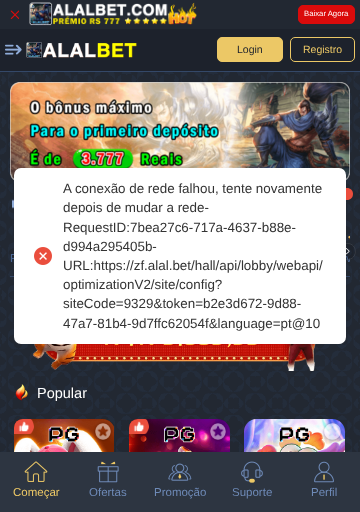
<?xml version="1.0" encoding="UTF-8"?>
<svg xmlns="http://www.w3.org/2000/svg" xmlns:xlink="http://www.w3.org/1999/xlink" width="360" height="512">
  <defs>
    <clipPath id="clip1"><path d="M 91 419 h 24 v 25 h -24 z m 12 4 c 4.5 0 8 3.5 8 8 v 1 c 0 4.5 -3.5 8 -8 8 c -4.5 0 -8 -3.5 -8 -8 v -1 c 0 -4.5 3.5 -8 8 -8 z" clip-rule="evenodd" /></clipPath>
    <clipPath id="clip2"><path d="M 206 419 h 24 v 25 h -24 z m 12 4 c 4.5 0 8 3.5 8 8 v 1 c 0 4.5 -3.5 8 -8 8 c -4.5 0 -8 -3.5 -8 -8 v -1 c 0 -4.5 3.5 -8 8 -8 z" clip-rule="evenodd" /></clipPath>
    <clipPath id="clip3"><path d="M 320 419 h 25 v 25 h -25 z m 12.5 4 c 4.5 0 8.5 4 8.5 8.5 c 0 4.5 -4 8.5 -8.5 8.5 c -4.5 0 -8.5 -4 -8.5 -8.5 c 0 -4.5 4 -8.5 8.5 -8.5 z" clip-rule="evenodd" /></clipPath>
    <clipPath id="clip4"><rect x="333" y="253" width="17" height="23" /></clipPath>
  </defs>
  <rect width="100%" height="100%" fill="#222832" />
  <image x="10" y="10" width="9" height="9" xlink:href="image1.png" />
  <image x="29" y="2" width="168" height="24" xlink:href="image2.png" />
  <rect x="298.5" y="5.5" width="56" height="18" rx="4.5" fill="#da0b0b" stroke="#da0b0b" />
  <rect y="29" width="360" height="42" fill="#1d222c" />
  <rect y="71" width="360" height="1" fill="#344868" />
  <image x="5" y="44" width="17" height="11" xlink:href="image3.png" />
  <image x="26" y="42" width="111" height="16" xlink:href="image4.png" />
  <rect x="217.5" y="37.5" width="65" height="24" rx="4.5" fill="#ecc866" stroke="#ecc866" />
  <rect x="290.5" y="37.5" width="64" height="24" rx="4.5" fill="none" stroke="#ecc866" />
  <image x="0" y="72" width="360" height="380" xlink:href="image5.png" />
  <image x="10" y="82" width="340" height="99" xlink:href="image6.png" />
  <path d="M 343 188 h 4 c 3.5 0 6 2.5 6 6 c 0 3.5 -2.5 6 -6 6 h -10 v -6 c 0 -3.5 2.5 -6 6 -6 z" fill="#ea4e3d" />
  <image x="12" y="199" width="2" height="10" xlink:href="image7.png" />
  <path d="M 347.5 260 c -11.5 0 -11.5 -17 0 -17 c 11.5 0 11.5 17 0 17 z" fill="#000000" fill-opacity="0.1" />
  <path d="M 347.5 259.5 c -10.5 0 -10.5 -16 0 -16 c 10.5 0 10.5 16 0 16 z" fill="none" stroke="#ffffff" stroke-opacity="0.1" />
  <image x="346" y="248" width="4" height="7" xlink:href="image8.png" />
  <rect x="10" y="276" width="340" height="1" fill="#344868" />
  <image x="348" y="235" width="2" height="5" xlink:href="image9.png" />
  <image x="32" y="344" width="284" height="27" xlink:href="image10.png" />
  <image x="104" y="344" width="5" height="2" xlink:href="image11.png" />
  <image x="114" y="344" width="6" height="3" xlink:href="image12.png" />
  <image x="129" y="344" width="5" height="4" xlink:href="image13.png" />
  <image x="139" y="344" width="5" height="2" xlink:href="image14.png" />
  <image x="149" y="344" width="6" height="3" xlink:href="image15.png" />
  <image x="163" y="344" width="12" height="3" xlink:href="image16.png" />
  <image x="178" y="344" width="4" height="4" xlink:href="image17.png" />
  <image x="184" y="344" width="12" height="3" xlink:href="image18.png" />
  <image x="198" y="344" width="12" height="3" xlink:href="image19.png" />
  <image x="212" y="344" width="11" height="3" xlink:href="image20.png" />
  <image x="227" y="344" width="5" height="5" xlink:href="image21.png" />
  <image x="233" y="344" width="11" height="3" xlink:href="image22.png" />
  <image x="247" y="344" width="11" height="3" xlink:href="image23.png" />
  <image x="15" y="384" width="13" height="17" xlink:href="image24.png" />
  <image x="14" y="419" width="100" height="33" xlink:href="image25.png" />
  <image x="14" y="419" width="20" height="15" xlink:href="image26.png" />
  <g clip-path="url(#clip1)">
    <rect x="95" y="423" width="16" height="17" rx="8" fill="#000000" fill-opacity="0.3" filter="blur(1px)" />
  </g>
  <image x="95" y="423" width="16" height="17" xlink:href="image27.png" />
  <image x="129" y="419" width="101" height="33" xlink:href="image28.png" />
  <image x="129" y="419" width="20" height="15" xlink:href="image29.png" />
  <g clip-path="url(#clip2)">
    <rect x="210" y="423" width="16" height="17" rx="8" fill="#000000" fill-opacity="0.3" filter="blur(1px)" />
  </g>
  <image x="210" y="423" width="16" height="17" xlink:href="image30.png" />
  <image x="244" y="419" width="101" height="33" xlink:href="image31.png" />
  <g clip-path="url(#clip3)">
    <rect x="324" y="423" width="17" height="17" rx="8.5" fill="#000000" fill-opacity="0.3" filter="blur(1px)" />
  </g>
  <image x="324" y="423" width="17" height="17" xlink:href="image32.png" />
  <rect y="452" width="360" height="60" fill="#2d3541" />
  <image x="24" y="461" width="24" height="21" xlink:href="image33.png" />
  <image x="101" y="461" width="15" height="4" xlink:href="image34.png" />
  <image x="97" y="466" width="22" height="17" xlink:href="image35.png" />
  <image x="168" y="463" width="24" height="18" xlink:href="image36.png" />
  <image x="178" y="473" width="4" height="6" xlink:href="image37.png" />
  <image x="241" y="461" width="22" height="21" xlink:href="image38.png" />
  <image x="249" y="478" width="6" height="5" xlink:href="image39.png" />
  <image x="314" y="461" width="20" height="22" xlink:href="image40.png" />
  <image x="323" y="474" width="2" height="6" xlink:href="image41.png" />
  <text x="304" y="16" style="font-family: Liberation Sans; font-size: 7.75px; fill: #ffffff">Baixar Agora</text>
  <text x="237" y="53" style="font-family: Liberation Sans; font-size: 10.5px; fill: #1d222c">Login</text>
  <text x="303" y="53" style="font-family: Liberation Sans; font-size: 10.5px; fill: #ecc866">Registro</text>
  <text x="10" y="262" style="font-family: Liberation Sans; font-size: 11.5px; fill: #496592">P</text>
  <g clip-path="url(#clip4)">
    <text x="346" y="262" style="font-family: Liberation Sans; font-size: 11.5px; fill: #496592">v</text>
  </g>
  <text x="37" y="398" style="font-family: Liberation Sans; font-size: 14.5px; fill: #ffffff">Popular</text>
  <text x="13" y="496" style="font-family: Liberation Sans; font-size: 11.5px; fill: #ecc866">Começar</text>
  <text x="89" y="496" style="font-family: Liberation Sans; font-size: 11.5px; fill: #6e8ab7">Ofertas</text>
  <text x="154" y="496" style="font-family: Liberation Sans; font-size: 11.5px; fill: #6e8ab7">Promoção</text>
  <text x="232" y="496" style="font-family: Liberation Sans; font-size: 11.5px; fill: #6e8ab7">Suporte</text>
  <text x="311" y="496" style="font-family: Liberation Sans; font-size: 11.5px; fill: #6e8ab7">Perfil</text>
  <rect x="14" y="168" width="332" height="176" rx="7" fill="#ffffff" />
  <image x="34" y="247" width="18" height="18" xlink:href="image42.png" />
  <text x="63" y="193" style="font-family: Liberation Sans; font-size: 13.4px; fill: #333333">A conexão de rede falhou, tente novamente</text>
  <text x="63" y="212" style="font-family: Liberation Sans; font-size: 13.4px; fill: #333333">depois de mudar a rede-</text>
  <text x="63" y="232" style="font-family: Liberation Sans; font-size: 13.4px; fill: #333333">RequestID:7bea27c6-717a-4637-b88e-</text>
  <text x="63" y="251" style="font-family: Liberation Sans; font-size: 13.4px; fill: #333333">d994a295405b-</text>
  <text x="63" y="270" style="font-family: Liberation Sans; font-size: 13.4px; fill: #333333">URL:https://zf.alal.bet/hall/api/lobby/webapi/</text>
  <text x="63" y="289" style="font-family: Liberation Sans; font-size: 13.4px; fill: #333333">optimizationV2/site/config?</text>
  <text x="63" y="308" style="font-family: Liberation Sans; font-size: 13.4px; fill: #333333">siteCode=9329&amp;token=b2e3d672-9d88-</text>
  <text x="63" y="328" style="font-family: Liberation Sans; font-size: 13.4px; fill: #333333">47a7-81b4-9d7ffc62054f&amp;language=pt@10</text>
</svg>
